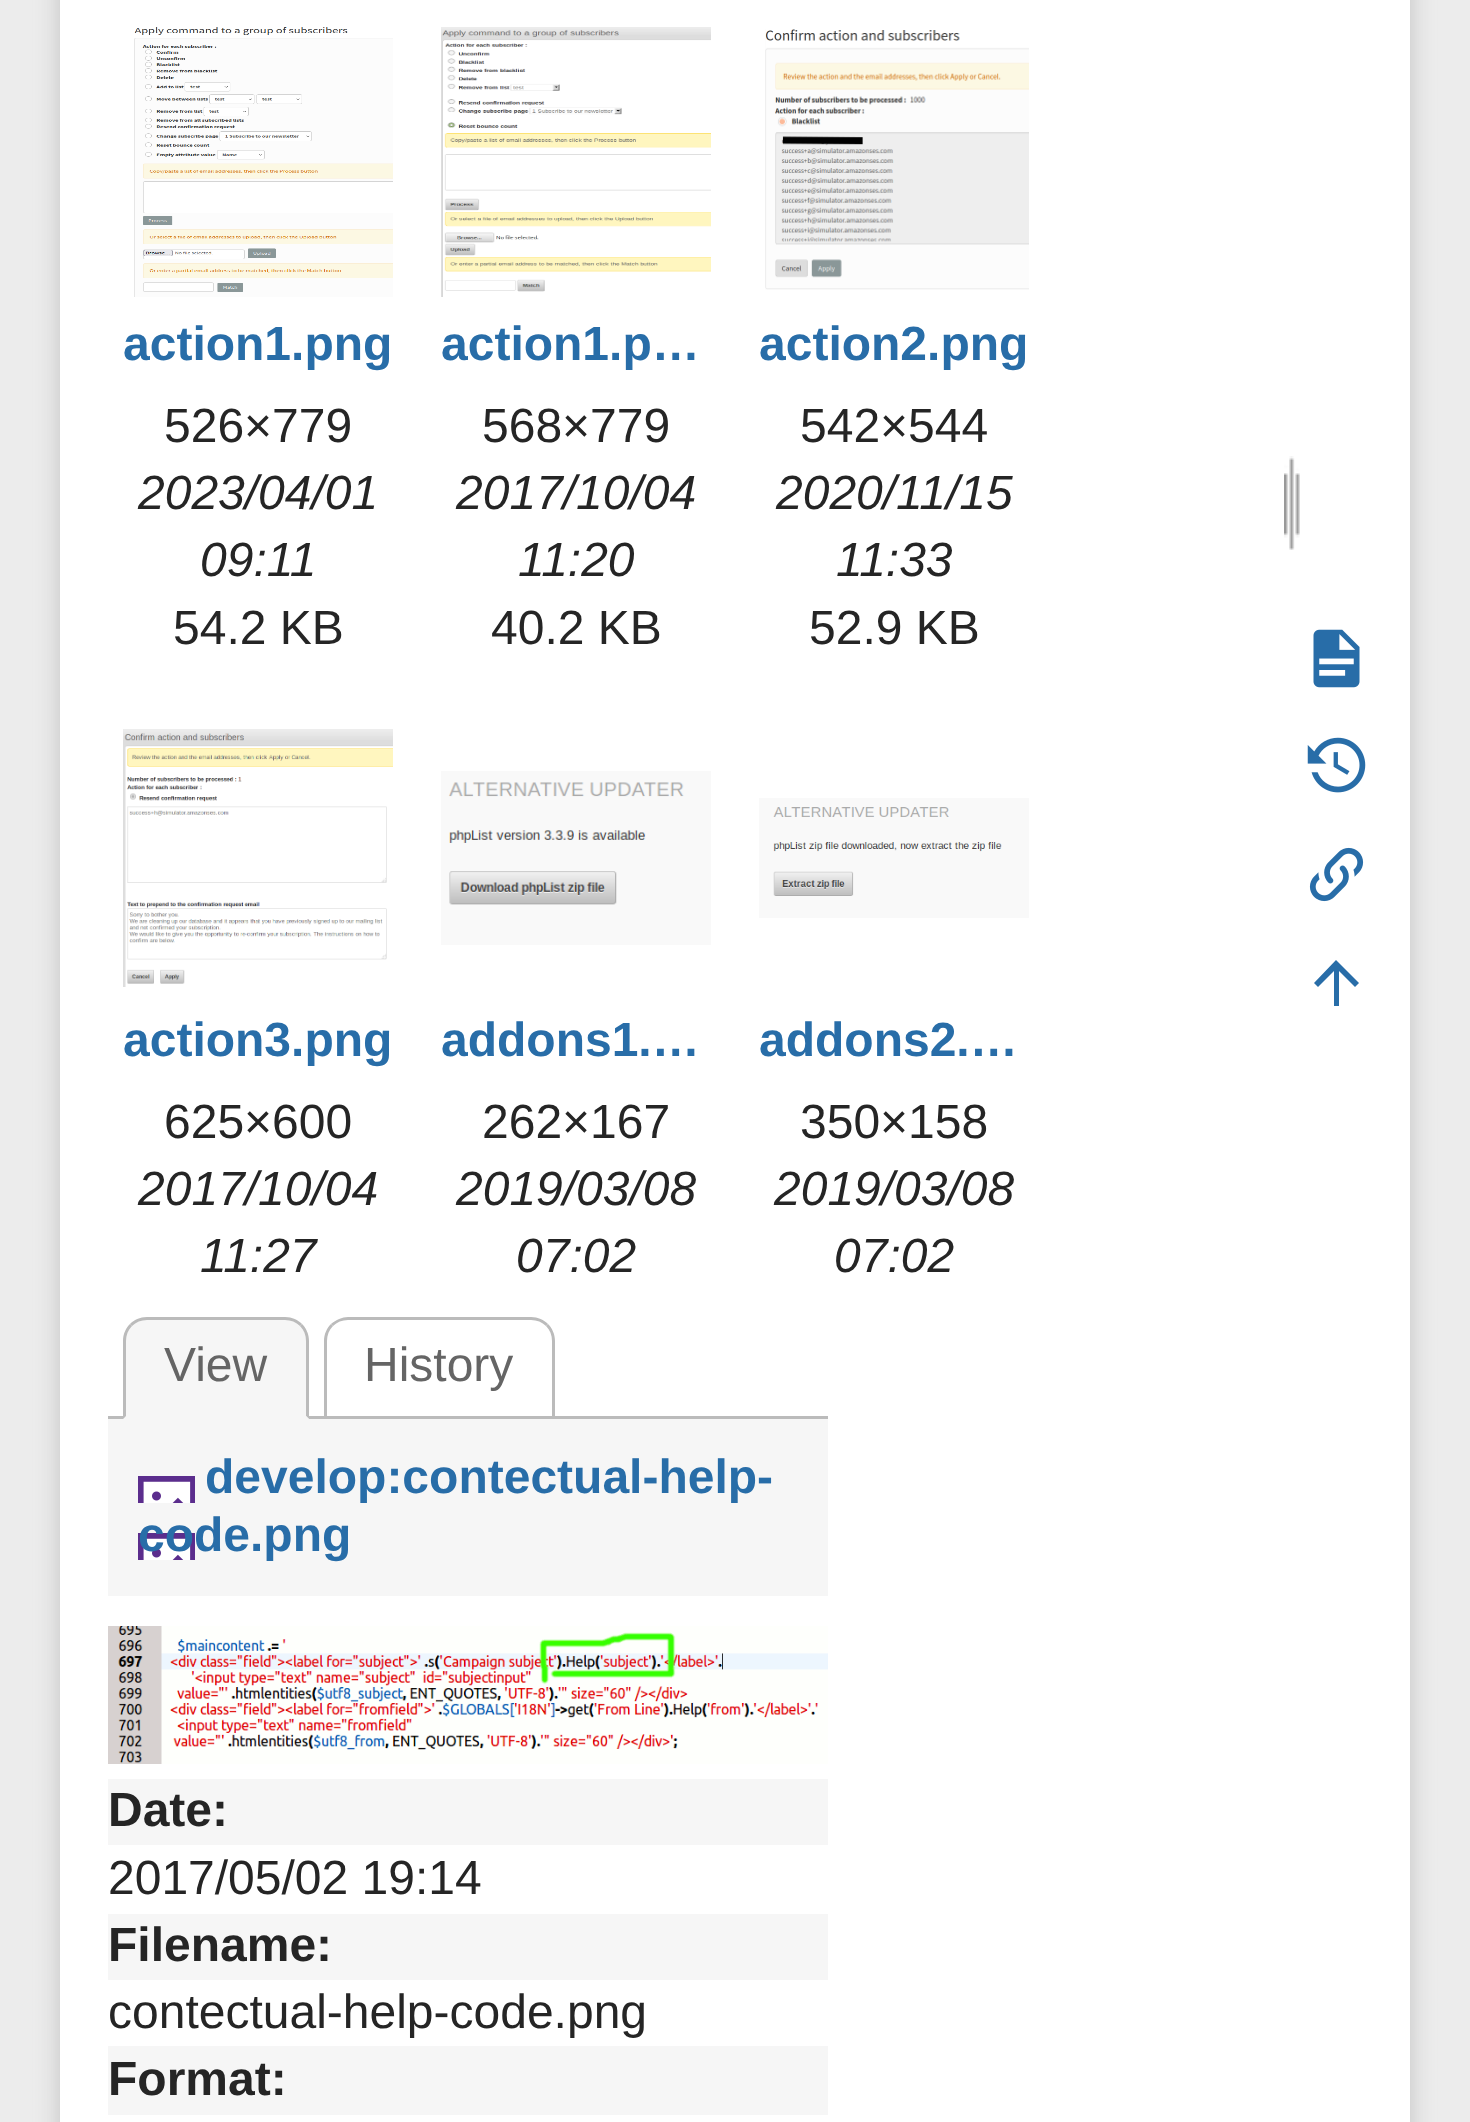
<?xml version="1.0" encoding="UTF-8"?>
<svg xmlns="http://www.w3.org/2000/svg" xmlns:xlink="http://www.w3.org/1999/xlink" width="1470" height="2122">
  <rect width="100%" height="100%" fill="#ececec" />
  <rect x="60" y="-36" width="1350" height="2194" fill="#999999" fill-opacity="0.5" filter="blur(12px)" />
  <rect x="60" width="1350" height="2122" fill="#ffffff" />
  <image x="134" y="27" width="259" height="270" xlink:href="image1.png" />
  <image x="441" y="27" width="270" height="270" xlink:href="image2.png" />
  <image x="765" y="29" width="264" height="261" xlink:href="image3.png" />
  <image x="123" y="729" width="270" height="258" xlink:href="image4.png" />
  <image x="441" y="771" width="270" height="174" xlink:href="image5.png" />
  <image x="759" y="798" width="270" height="120" xlink:href="image6.png" />
  <image x="1284" y="456" width="16" height="94" xlink:href="image7.png" />
  <path d="M 348 1317 c -6 0 -12 3 -17 7 l 2 2 c 4 -4 9 -6 15 -6 h 183 c 6 0 11 2 15 6 l 2 -2 c -4 -4 -10 -7 -17 -7 z" fill="#bbbbbb" />
  <path d="M 555 1419 v -78 c 0 -7 -3 -13 -7 -17 l -2 2 c 4 4 6 9 6 15 v 75 z" fill="#bbbbbb" />
  <path d="M 324 1419 l 3 -3 v -75 c 0 -6 2 -11 6 -15 l -2 -2 c -4 4 -7 10 -7 17 z" fill="#bbbbbb" />
  <rect x="108" y="1416" width="720" height="3" fill="#bbbbbb" />
  <path d="M 147 1317 h 138 c 13.5 0 24 10.5 24 24 v 78 h -186 v -78 c 0 -13.5 10.5 -24 24 -24 z" fill="#f6f6f6" />
  <path d="M 147 1317 c -7 0 -13 3 -17 7 l 2 2 c 4 -4 9 -6 15 -6 h 138 c 6 0 11 2 15 6 l 2 -2 c -4 -4 -10 -7 -17 -7 z" fill="#bbbbbb" />
  <path d="M 309 1419 v -78 c 0 -7 -3 -13 -7 -17 l -2 2 c 4 4 6 9 6 15 v 75 z" fill="#bbbbbb" />
  <path d="M 309 1419 l -3 -3 h -180 l -3 3 z" fill="#f6f6f6" />
  <path d="M 123 1419 l 3 -3 v -75 c 0 -6 2 -11 6 -15 l -2 -2 c -4 4 -7 10 -7 17 z" fill="#bbbbbb" />
  <rect x="108" y="1419" width="720" height="177" fill="#f6f6f6" />
  <image x="138" y="1476" width="57" height="84" xlink:href="image8.png" />
  <image x="108" y="1626" width="720" height="138" xlink:href="image9.png" />
  <rect x="108" y="1779" width="720" height="66" fill="#f6f6f6" />
  <rect x="108" y="1914" width="720" height="66" fill="#f6f6f6" />
  <rect x="108" y="2046" width="720" height="69" fill="#f6f6f6" />
  <image x="1313" y="629" width="47" height="59" xlink:href="image10.png" />
  <image x="1307" y="737" width="59" height="56" xlink:href="image11.png" />
  <image x="1309" y="847" width="55" height="55" xlink:href="image12.png" />
  <path d="M 1339 1006 h -5 v -35 l -16 16 l -4 -4 l 22 -23 l 23 23 l -4 4 l -16 -16 z" fill="#286da8" />
  <text x="123" y="360" style="font-family: Liberation Sans; font-size: 48px; font-weight: bold; fill: #286da8">action1.png</text>
  <text x="164" y="442" style="font-family: Liberation Sans; font-size: 48px; fill: #252525">526×779</text>
  <text x="138" y="509" style="font-family: Liberation Sans; font-size: 48px; font-style: italic; fill: #252525">2023/04/01</text>
  <text x="200" y="576" style="font-family: Liberation Sans; font-size: 48px; font-style: italic; fill: #252525">09:11</text>
  <text x="173" y="644" style="font-family: Liberation Sans; font-size: 48px; fill: #252525">54.2 KB</text>
  <text x="441" y="360" style="font-family: Liberation Sans; font-size: 48px; font-weight: bold; fill: #286da8">action1.p…</text>
  <text x="482" y="442" style="font-family: Liberation Sans; font-size: 48px; fill: #252525">568×779</text>
  <text x="456" y="509" style="font-family: Liberation Sans; font-size: 48px; font-style: italic; fill: #252525">2017/10/04</text>
  <text x="518" y="576" style="font-family: Liberation Sans; font-size: 48px; font-style: italic; fill: #252525">11:20</text>
  <text x="491" y="644" style="font-family: Liberation Sans; font-size: 48px; fill: #252525">40.2 KB</text>
  <text x="759" y="360" style="font-family: Liberation Sans; font-size: 48px; font-weight: bold; fill: #286da8">action2.png</text>
  <text x="800" y="442" style="font-family: Liberation Sans; font-size: 48px; fill: #252525">542×544</text>
  <text x="776" y="509" style="font-family: Liberation Sans; font-size: 48px; font-style: italic; fill: #252525">2020/11/15</text>
  <text x="836" y="576" style="font-family: Liberation Sans; font-size: 48px; font-style: italic; fill: #252525">11:33</text>
  <text x="809" y="644" style="font-family: Liberation Sans; font-size: 48px; fill: #252525">52.9 KB</text>
  <text x="123" y="1056" style="font-family: Liberation Sans; font-size: 48px; font-weight: bold; fill: #286da8">action3.png</text>
  <text x="164" y="1138" style="font-family: Liberation Sans; font-size: 48px; fill: #252525">625×600</text>
  <text x="138" y="1205" style="font-family: Liberation Sans; font-size: 48px; font-style: italic; fill: #252525">2017/10/04</text>
  <text x="200" y="1272" style="font-family: Liberation Sans; font-size: 48px; font-style: italic; fill: #252525">11:27</text>
  <text x="441" y="1056" style="font-family: Liberation Sans; font-size: 48px; font-weight: bold; fill: #286da8">addons1.…</text>
  <text x="482" y="1138" style="font-family: Liberation Sans; font-size: 48px; fill: #252525">262×167</text>
  <text x="456" y="1205" style="font-family: Liberation Sans; font-size: 48px; font-style: italic; fill: #252525">2019/03/08</text>
  <text x="516" y="1272" style="font-family: Liberation Sans; font-size: 48px; font-style: italic; fill: #252525">07:02</text>
  <text x="759" y="1056" style="font-family: Liberation Sans; font-size: 48px; font-weight: bold; fill: #286da8">addons2.…</text>
  <text x="800" y="1138" style="font-family: Liberation Sans; font-size: 48px; fill: #252525">350×158</text>
  <text x="774" y="1205" style="font-family: Liberation Sans; font-size: 48px; font-style: italic; fill: #252525">2019/03/08</text>
  <text x="834" y="1272" style="font-family: Liberation Sans; font-size: 48px; font-style: italic; fill: #252525">07:02</text>
  <text x="164" y="1381" style="font-family: Liberation Sans; font-size: 48px; fill: #656565">View</text>
  <text x="364" y="1381" style="font-family: Liberation Sans; font-size: 48px; fill: #656565">History</text>
  <text x="205" y="1493" style="font-family: Liberation Sans; font-size: 48px; font-weight: bold; fill: #286da8">develop:contectual-help-</text>
  <text x="138" y="1551" style="font-family: Liberation Sans; font-size: 48px; font-weight: bold; fill: #286da8">code.png</text>
  <text x="108" y="1826" style="font-family: Liberation Sans; font-size: 48px; font-weight: bold; fill: #252525">Date:</text>
  <text x="108" y="1894" style="font-family: Liberation Sans; font-size: 48px; fill: #252525">2017/05/02 19:14</text>
  <text x="108" y="1961" style="font-family: Liberation Sans; font-size: 48px; font-weight: bold; fill: #252525">Filename:</text>
  <text x="108" y="2028" style="font-family: Liberation Sans; font-size: 48px; fill: #252525">contectual-help-code.png</text>
  <text x="108" y="2095" style="font-family: Liberation Sans; font-size: 48px; font-weight: bold; fill: #252525">Format:</text>
</svg>
